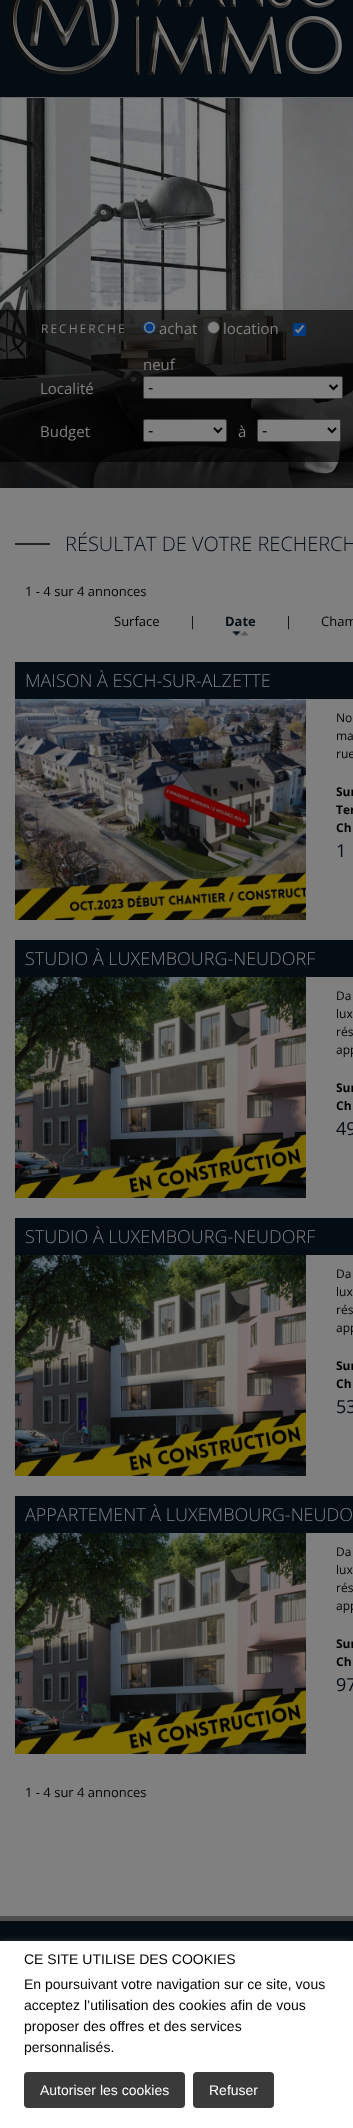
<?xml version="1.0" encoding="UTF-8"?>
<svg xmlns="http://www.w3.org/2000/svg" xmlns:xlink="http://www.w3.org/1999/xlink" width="353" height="2128">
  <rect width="100%" height="100%" fill="#808080" />
  <rect width="353" height="97" fill="#040c14" />
  <rect y="97" width="353" height="1" fill="#676767" />
  <image x="10" y="0" width="333" height="76" xlink:href="image1.png" />
  <image x="0" y="98" width="353" height="390" xlink:href="image2.png" />
  <rect y="310" width="353" height="152" fill="#000000" fill-opacity="0.65" />
  <circle cx="149.5" cy="327.5" r="6" fill="#808080" stroke="#003b80" />
  <circle cx="149.5" cy="327.5" r="4" fill="#003b80" />
  <circle cx="213.5" cy="327.5" r="6" fill="#808080" stroke="#3b3b3b" />
  <rect x="293" y="323" width="13" height="13" rx="2" fill="#003b80" />
  <path d="M 295.5 329.5 l 2.5 2.5 l 5.5 -6.5" fill="none" stroke="#808080" stroke-width="2.1" />
  <rect x="143.5" y="376.5" width="199" height="22" rx="1.5" fill="#808080" stroke="#3b3b3b" />
  <path d="M 329.5 385 l 4 4 l 4 -4" fill="none" stroke="#000000" stroke-width="2" />
  <rect x="143.5" y="419.5" width="83" height="22" rx="1.5" fill="#808080" stroke="#3b3b3b" />
  <path d="M 214 428 l 4 4 l 4 -4" fill="none" stroke="#000000" stroke-width="2" />
  <rect x="257.5" y="419.5" width="83" height="22" rx="1.5" fill="#808080" stroke="#3b3b3b" />
  <path d="M 328 428 l 4 4 l 4 -4" fill="none" stroke="#000000" stroke-width="2" />
  <rect x="15" y="543" width="35" height="2" fill="#252524" />
  <rect x="232" y="631" width="17" height="5" fill="#040c14" />
  <image x="225" y="612" width="31" height="30" xlink:href="image3.png" />
  <rect x="15" y="662" width="338" height="37" fill="#040c14" />
  <image x="15" y="699" width="291" height="221" xlink:href="image4.png" />
  <rect x="15" y="940" width="338" height="37" fill="#040c14" />
  <image x="15" y="977" width="291" height="221" xlink:href="image5.png" />
  <rect x="15" y="1218" width="338" height="37" fill="#040c14" />
  <image x="15" y="1255" width="291" height="221" xlink:href="image5.png" />
  <rect x="15" y="1496" width="338" height="37" fill="#040c14" />
  <image x="15" y="1533" width="291" height="221" xlink:href="image5.png" />
  <rect y="1921" width="353" height="20" fill="#040c14" />
  <rect y="1916" width="353" height="5" fill="#4e4e4c" />
  <rect y="1944" width="353" height="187" fill="#606060" filter="blur(5px)" />
  <rect y="1941" width="353" height="187" fill="#ffffff" />
  <rect x="24" y="2072" width="161" height="36" rx="4" fill="#3a3a3a" />
  <rect x="193" y="2072" width="81" height="36" rx="4" fill="#3a3a3a" />
  <text x="159" y="334" style="font-family: Open Sans; font-size: 15px; fill: #808080">achat</text>
  <text x="223" y="334" style="font-family: Open Sans; font-size: 15px; fill: #808080">location</text>
  <text x="143" y="370" style="font-family: Open Sans; font-size: 15px; fill: #808080">neuf</text>
  <text x="40" y="394" style="font-family: Open Sans; font-size: 15px; fill: #808080">Localité</text>
  <text x="148" y="393" style="font-family: Liberation Sans; font-size: 16px; fill: #000000">-</text>
  <text x="40" y="437" style="font-family: Open Sans; font-size: 15px; fill: #808080">Budget</text>
  <text x="148" y="436" style="font-family: Liberation Sans; font-size: 16px; fill: #000000">-</text>
  <text x="238" y="437" style="font-family: Open Sans; font-size: 15px; fill: #808080">à</text>
  <text x="262" y="436" style="font-family: Liberation Sans; font-size: 16px; fill: #000000">-</text>
  <text x="41" y="333" style="font-family: Open Sans; font-size: 12px; letter-spacing: 2px; fill: #808080">RECHERCHE</text>
  <text x="65" y="551" style="font-family: Open Sans; font-size: 20px; font-weight: 300; fill: #040c14">RÉSULTAT DE VOTRE RECHERCH</text>
  <text x="25" y="596" style="font-family: Open Sans; font-size: 13px; fill: #000000">1 - 4 sur 4 annonces</text>
  <text x="114" y="626" style="font-family: Open Sans; font-size: 13px; fill: #000000">Surface</text>
  <text x="189" y="626" style="font-family: Open Sans; font-size: 13px; fill: #000000">|</text>
  <text x="225" y="626" style="font-family: Open Sans; font-size: 13px; font-weight: bold; fill: #040c14">Date</text>
  <text x="285" y="626" style="font-family: Open Sans; font-size: 13px; fill: #000000">|</text>
  <text x="321" y="626" style="font-family: Open Sans; font-size: 13px; fill: #000000">Cham</text>
  <text x="25" y="687" style="font-family: Open Sans; font-size: 18px; font-weight: 300; fill: #808080">MAISON À ESCH-SUR-ALZETTE</text>
  <text x="336" y="722" style="font-family: Open Sans; font-size: 12px; fill: #000000">No</text>
  <text x="336" y="740" style="font-family: Open Sans; font-size: 12px; fill: #000000">ma</text>
  <text x="336" y="758" style="font-family: Open Sans; font-size: 12px; fill: #000000">rue</text>
  <text x="336" y="796" style="font-family: Open Sans; font-size: 12px; font-weight: bold; fill: #000000">Sur</text>
  <text x="336" y="814" style="font-family: Open Sans; font-size: 12px; font-weight: bold; fill: #000000">Ter</text>
  <text x="336" y="832" style="font-family: Open Sans; font-size: 12px; font-weight: bold; fill: #000000">Ch</text>
  <text x="336" y="857" style="font-family: Open Sans; font-size: 18px; fill: #040c14">1</text>
  <text x="25" y="965" style="font-family: Open Sans; font-size: 18px; font-weight: 300; fill: #808080">STUDIO À LUXEMBOURG-NEUDORF</text>
  <text x="336" y="1000" style="font-family: Open Sans; font-size: 12px; fill: #000000">Da</text>
  <text x="336" y="1018" style="font-family: Open Sans; font-size: 12px; fill: #000000">lux</text>
  <text x="336" y="1036" style="font-family: Open Sans; font-size: 12px; fill: #000000">rés</text>
  <text x="336" y="1054" style="font-family: Open Sans; font-size: 12px; fill: #000000">app</text>
  <text x="336" y="1092" style="font-family: Open Sans; font-size: 12px; font-weight: bold; fill: #000000">Sur</text>
  <text x="336" y="1110" style="font-family: Open Sans; font-size: 12px; font-weight: bold; fill: #000000">Ch</text>
  <text x="336" y="1135" style="font-family: Open Sans; font-size: 18px; fill: #040c14">49</text>
  <text x="25" y="1243" style="font-family: Open Sans; font-size: 18px; font-weight: 300; fill: #808080">STUDIO À LUXEMBOURG-NEUDORF</text>
  <text x="336" y="1278" style="font-family: Open Sans; font-size: 12px; fill: #000000">Da</text>
  <text x="336" y="1296" style="font-family: Open Sans; font-size: 12px; fill: #000000">lux</text>
  <text x="336" y="1314" style="font-family: Open Sans; font-size: 12px; fill: #000000">rés</text>
  <text x="336" y="1332" style="font-family: Open Sans; font-size: 12px; fill: #000000">app</text>
  <text x="336" y="1370" style="font-family: Open Sans; font-size: 12px; font-weight: bold; fill: #000000">Sur</text>
  <text x="336" y="1388" style="font-family: Open Sans; font-size: 12px; font-weight: bold; fill: #000000">Ch</text>
  <text x="336" y="1413" style="font-family: Open Sans; font-size: 18px; fill: #040c14">53</text>
  <text x="25" y="1521" style="font-family: Open Sans; font-size: 18px; font-weight: 300; fill: #808080">APPARTEMENT À LUXEMBOURG-NEUDO</text>
  <text x="336" y="1556" style="font-family: Open Sans; font-size: 12px; fill: #000000">Da</text>
  <text x="336" y="1574" style="font-family: Open Sans; font-size: 12px; fill: #000000">lux</text>
  <text x="336" y="1592" style="font-family: Open Sans; font-size: 12px; fill: #000000">rés</text>
  <text x="336" y="1610" style="font-family: Open Sans; font-size: 12px; fill: #000000">app</text>
  <text x="336" y="1648" style="font-family: Open Sans; font-size: 12px; font-weight: bold; fill: #000000">Sur</text>
  <text x="336" y="1666" style="font-family: Open Sans; font-size: 12px; font-weight: bold; fill: #000000">Ch</text>
  <text x="336" y="1691" style="font-family: Open Sans; font-size: 18px; fill: #040c14">97</text>
  <text x="25" y="1797" style="font-family: Open Sans; font-size: 13px; fill: #000000">1 - 4 sur 4 annonces</text>
  <text x="24" y="1964" style="font-family: Liberation Sans; font-size: 14px; fill: #000000">CE SITE UTILISE DES COOKIES</text>
  <text x="24" y="1989" style="font-family: Liberation Sans; font-size: 14px; fill: #000000">En poursuivant votre navigation sur ce site, vous</text>
  <text x="24" y="2010" style="font-family: Liberation Sans; font-size: 14px; fill: #000000">acceptez l’utilisation des cookies afin de vous</text>
  <text x="24" y="2031" style="font-family: Liberation Sans; font-size: 14px; fill: #000000">proposer des offres et des services</text>
  <text x="24" y="2052" style="font-family: Liberation Sans; font-size: 14px; fill: #000000">personnalisés.</text>
  <text x="40" y="2095" style="font-family: Liberation Sans; font-size: 14px; fill: #ffffff">Autoriser les cookies</text>
  <text x="209" y="2095" style="font-family: Liberation Sans; font-size: 14px; fill: #ffffff">Refuser</text>
</svg>
